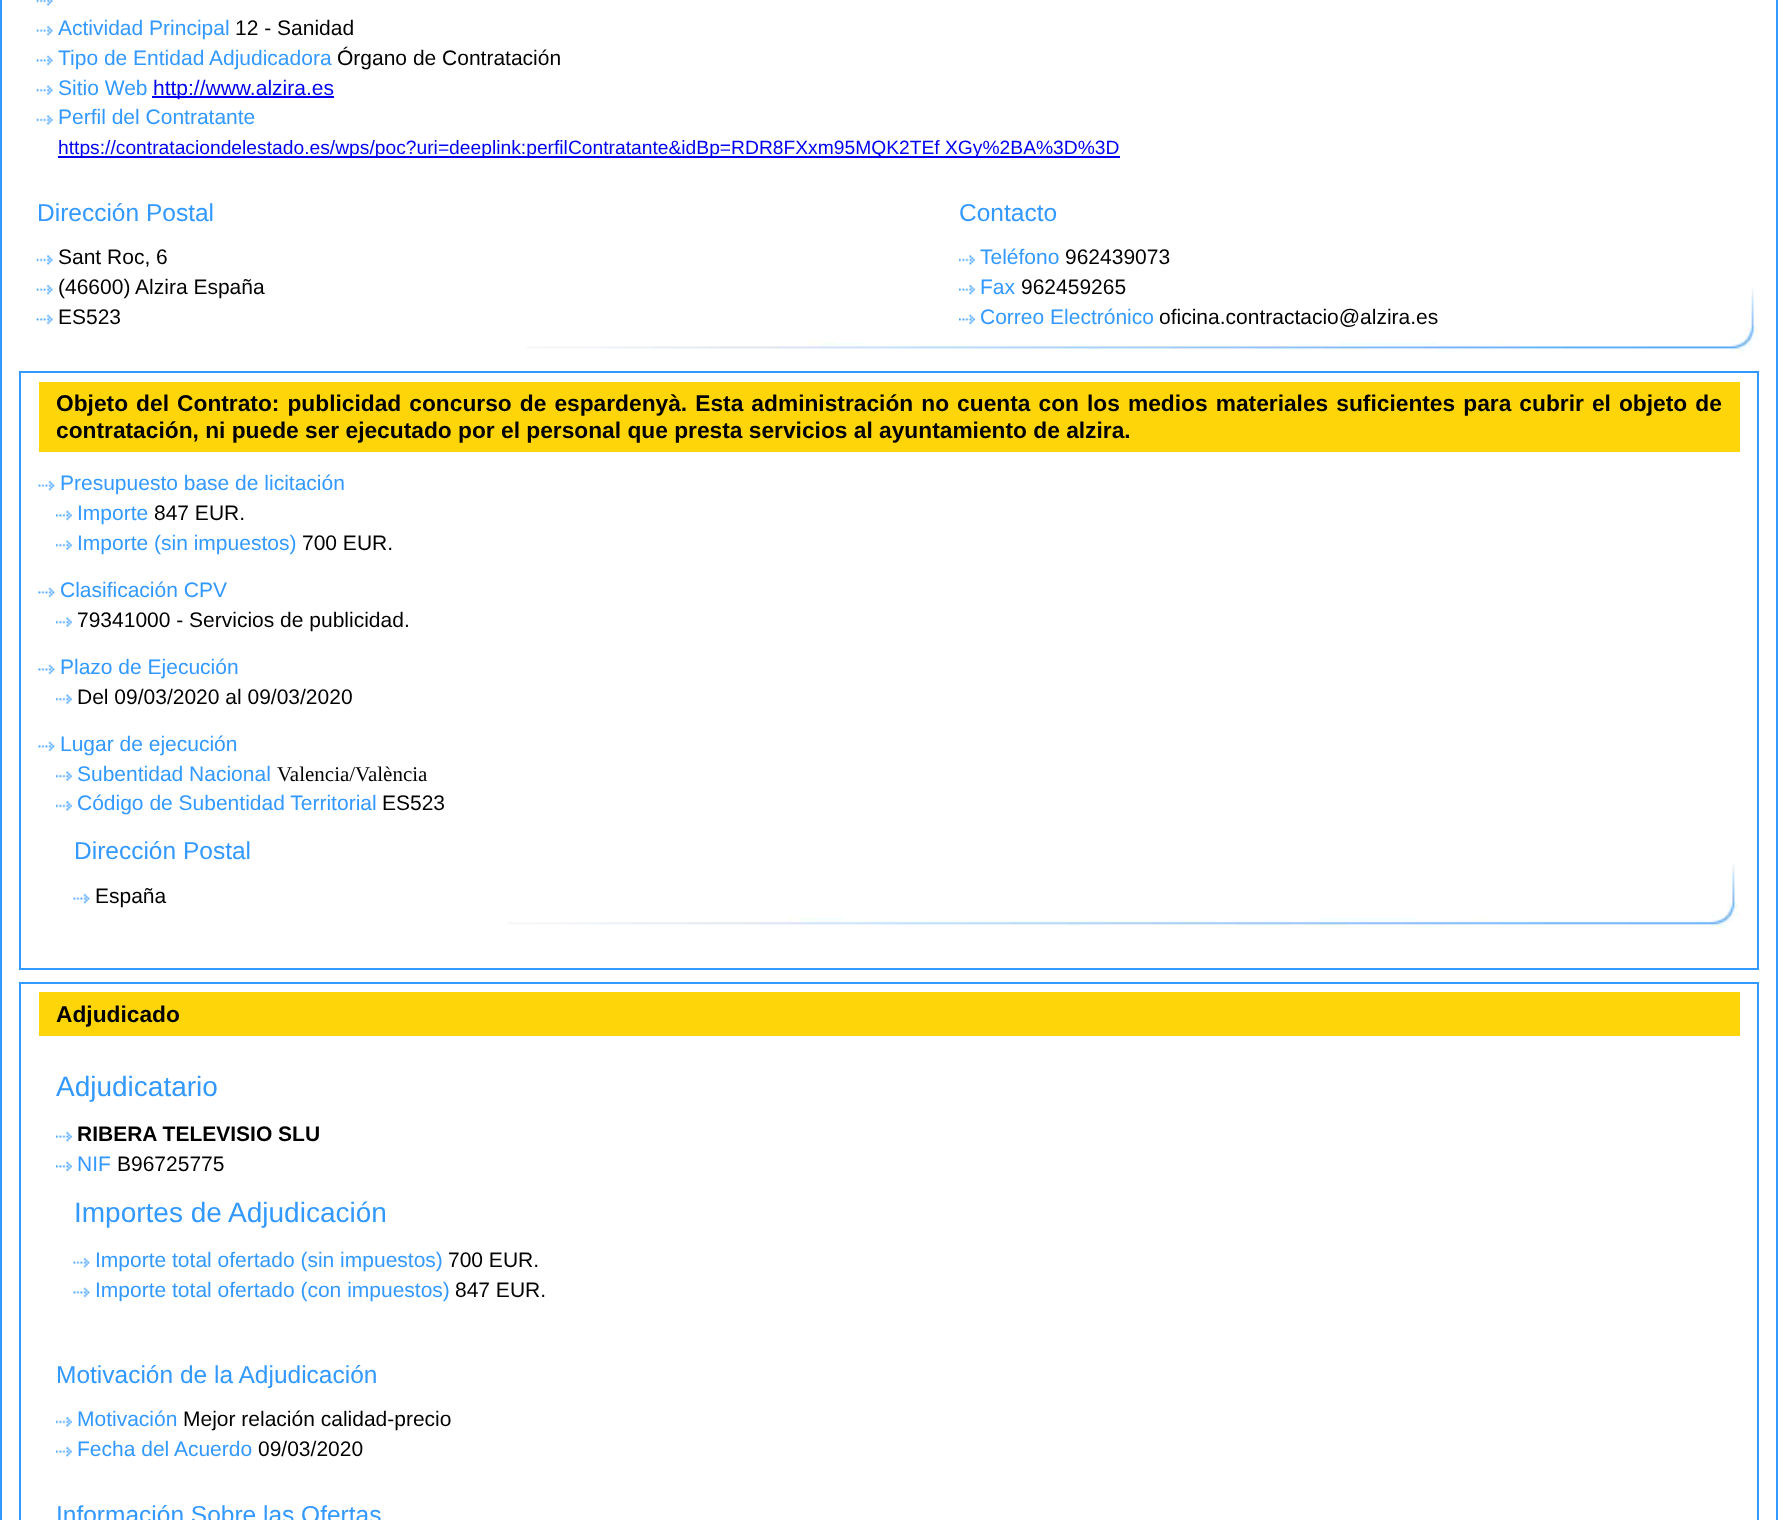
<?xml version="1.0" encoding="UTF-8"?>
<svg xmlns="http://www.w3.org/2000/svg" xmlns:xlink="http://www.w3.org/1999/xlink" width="1778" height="1520">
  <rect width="100%" height="100%" fill="#ffffff" />
  <rect x="1" y="-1" width="1776" height="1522" fill="none" stroke="#3399ff" stroke-width="2" />
  <image x="527" y="287" width="1232" height="67" xlink:href="image1.png" />
  <image x="36" y="0" width="17" height="6" xlink:href="image2.png" />
  <image x="36" y="25" width="17" height="11" xlink:href="image3.png" />
  <image x="36" y="55" width="17" height="11" xlink:href="image4.png" />
  <image x="36" y="85" width="17" height="10" xlink:href="image5.png" />
  <rect x="152" y="96" width="182" height="2" fill="#0000ee" />
  <image x="36" y="115" width="17" height="10" xlink:href="image6.png" />
  <rect x="58" y="156" width="1062" height="2" fill="#0000ee" />
  <image x="36" y="255" width="17" height="10" xlink:href="image6.png" />
  <image x="36" y="284" width="17" height="11" xlink:href="image3.png" />
  <image x="36" y="314" width="17" height="11" xlink:href="image4.png" />
  <image x="959" y="255" width="16" height="10" xlink:href="image7.png" />
  <image x="959" y="284" width="16" height="11" xlink:href="image8.png" />
  <image x="959" y="314" width="16" height="11" xlink:href="image9.png" />
  <rect x="20" y="372" width="1738" height="597" fill="none" stroke="#3399ff" stroke-width="2" />
  <image x="507" y="863" width="1233" height="66" xlink:href="image10.png" />
  <rect x="39" y="382" width="1701" height="70" fill="#fdd509" />
  <image x="38" y="480" width="17" height="11" xlink:href="image11.png" />
  <image x="56" y="510" width="16" height="11" xlink:href="image12.png" />
  <image x="56" y="540" width="16" height="10" xlink:href="image13.png" />
  <image x="38" y="587" width="17" height="11" xlink:href="image14.png" />
  <image x="56" y="617" width="16" height="10" xlink:href="image13.png" />
  <image x="38" y="664" width="17" height="11" xlink:href="image14.png" />
  <image x="56" y="694" width="16" height="10" xlink:href="image13.png" />
  <image x="38" y="741" width="17" height="11" xlink:href="image14.png" />
  <image x="56" y="771" width="16" height="10" xlink:href="image13.png" />
  <image x="56" y="801" width="16" height="10" xlink:href="image15.png" />
  <image x="73" y="893" width="17" height="11" xlink:href="image16.png" />
  <rect x="20" y="983" width="1738" height="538" fill="none" stroke="#3399ff" stroke-width="2" />
  <rect x="39" y="992" width="1701" height="44" fill="#fdd509" />
  <image x="56" y="1131" width="16" height="11" xlink:href="image17.png" />
  <image x="56" y="1161" width="16" height="11" xlink:href="image12.png" />
  <image x="73" y="1257" width="17" height="11" xlink:href="image16.png" />
  <image x="73" y="1287" width="17" height="11" xlink:href="image18.png" />
  <image x="56" y="1417" width="16" height="10" xlink:href="image15.png" />
  <image x="56" y="1446" width="16" height="11" xlink:href="image17.png" />
  <text x="58" y="35" style="font-family: Liberation Sans; font-size: 21px; fill: #3399ff">Actividad Principal</text>
  <text x="235" y="35" style="font-family: Liberation Sans; font-size: 21px; fill: #000000">12 - Sanidad</text>
  <text x="58" y="65" style="font-family: Liberation Sans; font-size: 21px; fill: #3399ff">Tipo de Entidad Adjudicadora</text>
  <text x="337" y="65" style="font-family: Liberation Sans; font-size: 21px; fill: #000000">Órgano de Contratación</text>
  <text x="58" y="95" style="font-family: Liberation Sans; font-size: 21px; fill: #3399ff">Sitio Web</text>
  <text x="153" y="95" style="font-family: Liberation Sans; font-size: 21px; fill: #0000ee">http://www.alzira.es</text>
  <text x="58" y="124" style="font-family: Liberation Sans; font-size: 21px; fill: #3399ff">Perfil del Contratante</text>
  <text x="58" y="154" style="font-family: Liberation Sans; font-size: 19.25px; fill: #0000ee">https://contrataciondelestado.es/wps/poc?uri=deeplink:perfilContratante&amp;idBp=RDR8FXxm95MQK2TEf XGy%2BA%3D%3D</text>
  <text x="37" y="221" style="font-family: Liberation Sans; font-size: 24.5px; fill: #3399ff">Dirección Postal</text>
  <text x="58" y="264" style="font-family: Liberation Sans; font-size: 21px; fill: #000000">Sant Roc, 6</text>
  <text x="58" y="294" style="font-family: Liberation Sans; font-size: 21px; fill: #000000">(46600) Alzira España</text>
  <text x="58" y="324" style="font-family: Liberation Sans; font-size: 21px; fill: #000000">ES523</text>
  <text x="959" y="221" style="font-family: Liberation Sans; font-size: 24.5px; fill: #3399ff">Contacto</text>
  <text x="980" y="264" style="font-family: Liberation Sans; font-size: 21px; fill: #3399ff">Teléfono</text>
  <text x="1065" y="264" style="font-family: Liberation Sans; font-size: 21px; fill: #000000">962439073</text>
  <text x="980" y="294" style="font-family: Liberation Sans; font-size: 21px; fill: #3399ff">Fax</text>
  <text x="1021" y="294" style="font-family: Liberation Sans; font-size: 21px; fill: #000000">962459265</text>
  <text x="980" y="324" style="font-family: Liberation Sans; font-size: 21px; fill: #3399ff">Correo Electrónico</text>
  <text x="1159" y="324" style="font-family: Liberation Sans; font-size: 21px; fill: #000000">oficina.contractacio@alzira.es</text>
  <text x="56" y="411" word-spacing="1.75" style="font-family: Liberation Sans; font-size: 22.75px; font-weight: bold; fill: #000000">Objeto del Contrato: publicidad concurso de espardenyà. Esta administración no cuenta con los medios materiales suficientes para cubrir el objeto de</text>
  <text x="56" y="438" style="font-family: Liberation Sans; font-size: 22.75px; font-weight: bold; fill: #000000">contratación, ni puede ser ejecutado por el personal que presta servicios al ayuntamiento de alzira.</text>
  <text x="60" y="490" style="font-family: Liberation Sans; font-size: 21px; fill: #3399ff">Presupuesto base de licitación</text>
  <text x="77" y="520" style="font-family: Liberation Sans; font-size: 21px; fill: #3399ff">Importe</text>
  <text x="154" y="520" style="font-family: Liberation Sans; font-size: 21px; fill: #000000">847 EUR.</text>
  <text x="77" y="550" style="font-family: Liberation Sans; font-size: 21px; fill: #3399ff">Importe (sin impuestos)</text>
  <text x="302" y="550" style="font-family: Liberation Sans; font-size: 21px; fill: #000000">700 EUR.</text>
  <text x="60" y="597" style="font-family: Liberation Sans; font-size: 21px; fill: #3399ff">Clasificación CPV</text>
  <text x="77" y="627" style="font-family: Liberation Sans; font-size: 21px; fill: #000000">79341000 - Servicios de publicidad.</text>
  <text x="60" y="674" style="font-family: Liberation Sans; font-size: 21px; fill: #3399ff">Plazo de Ejecución</text>
  <text x="77" y="704" style="font-family: Liberation Sans; font-size: 21px; fill: #000000">Del 09/03/2020 al 09/03/2020</text>
  <text x="60" y="751" style="font-family: Liberation Sans; font-size: 21px; fill: #3399ff">Lugar de ejecución</text>
  <text x="77" y="781" style="font-family: Liberation Sans; font-size: 21px; fill: #3399ff">Subentidad Nacional</text>
  <text x="277" y="781" style="font-family: Liberation Serif; font-size: 21px; fill: #000000">Valencia/València</text>
  <text x="77" y="810" style="font-family: Liberation Sans; font-size: 21px; fill: #3399ff">Código de Subentidad Territorial</text>
  <text x="382" y="810" style="font-family: Liberation Sans; font-size: 21px; fill: #000000">ES523</text>
  <text x="74" y="859" style="font-family: Liberation Sans; font-size: 24.5px; fill: #3399ff">Dirección Postal</text>
  <text x="95" y="903" style="font-family: Liberation Sans; font-size: 21px; fill: #000000">España</text>
  <text x="56" y="1022" style="font-family: Liberation Sans; font-size: 22.75px; font-weight: bold; fill: #000000">Adjudicado</text>
  <text x="56" y="1096" style="font-family: Liberation Sans; font-size: 28px; fill: #3399ff">Adjudicatario</text>
  <text x="77" y="1141" style="font-family: Liberation Sans; font-size: 21px; font-weight: bold; fill: #000000">RIBERA TELEVISIO SLU</text>
  <text x="77" y="1171" style="font-family: Liberation Sans; font-size: 21px; fill: #3399ff">NIF</text>
  <text x="117" y="1171" style="font-family: Liberation Sans; font-size: 21px; fill: #000000">B96725775</text>
  <text x="74" y="1222" style="font-family: Liberation Sans; font-size: 28px; fill: #3399ff">Importes de Adjudicación</text>
  <text x="95" y="1267" style="font-family: Liberation Sans; font-size: 21px; fill: #3399ff">Importe total ofertado (sin impuestos)</text>
  <text x="448" y="1267" style="font-family: Liberation Sans; font-size: 21px; fill: #000000">700 EUR.</text>
  <text x="95" y="1297" style="font-family: Liberation Sans; font-size: 21px; fill: #3399ff">Importe total ofertado (con impuestos)</text>
  <text x="455" y="1297" style="font-family: Liberation Sans; font-size: 21px; fill: #000000">847 EUR.</text>
  <text x="56" y="1383" style="font-family: Liberation Sans; font-size: 24.5px; fill: #3399ff">Motivación de la Adjudicación</text>
  <text x="77" y="1426" style="font-family: Liberation Sans; font-size: 21px; fill: #3399ff">Motivación</text>
  <text x="183" y="1426" style="font-family: Liberation Sans; font-size: 21px; fill: #000000">Mejor relación calidad-precio</text>
  <text x="77" y="1456" style="font-family: Liberation Sans; font-size: 21px; fill: #3399ff">Fecha del Acuerdo</text>
  <text x="258" y="1456" style="font-family: Liberation Sans; font-size: 21px; fill: #000000">09/03/2020</text>
  <text x="56" y="1523" style="font-family: Liberation Sans; font-size: 24.5px; fill: #3399ff">Información Sobre las Ofertas</text>
</svg>
